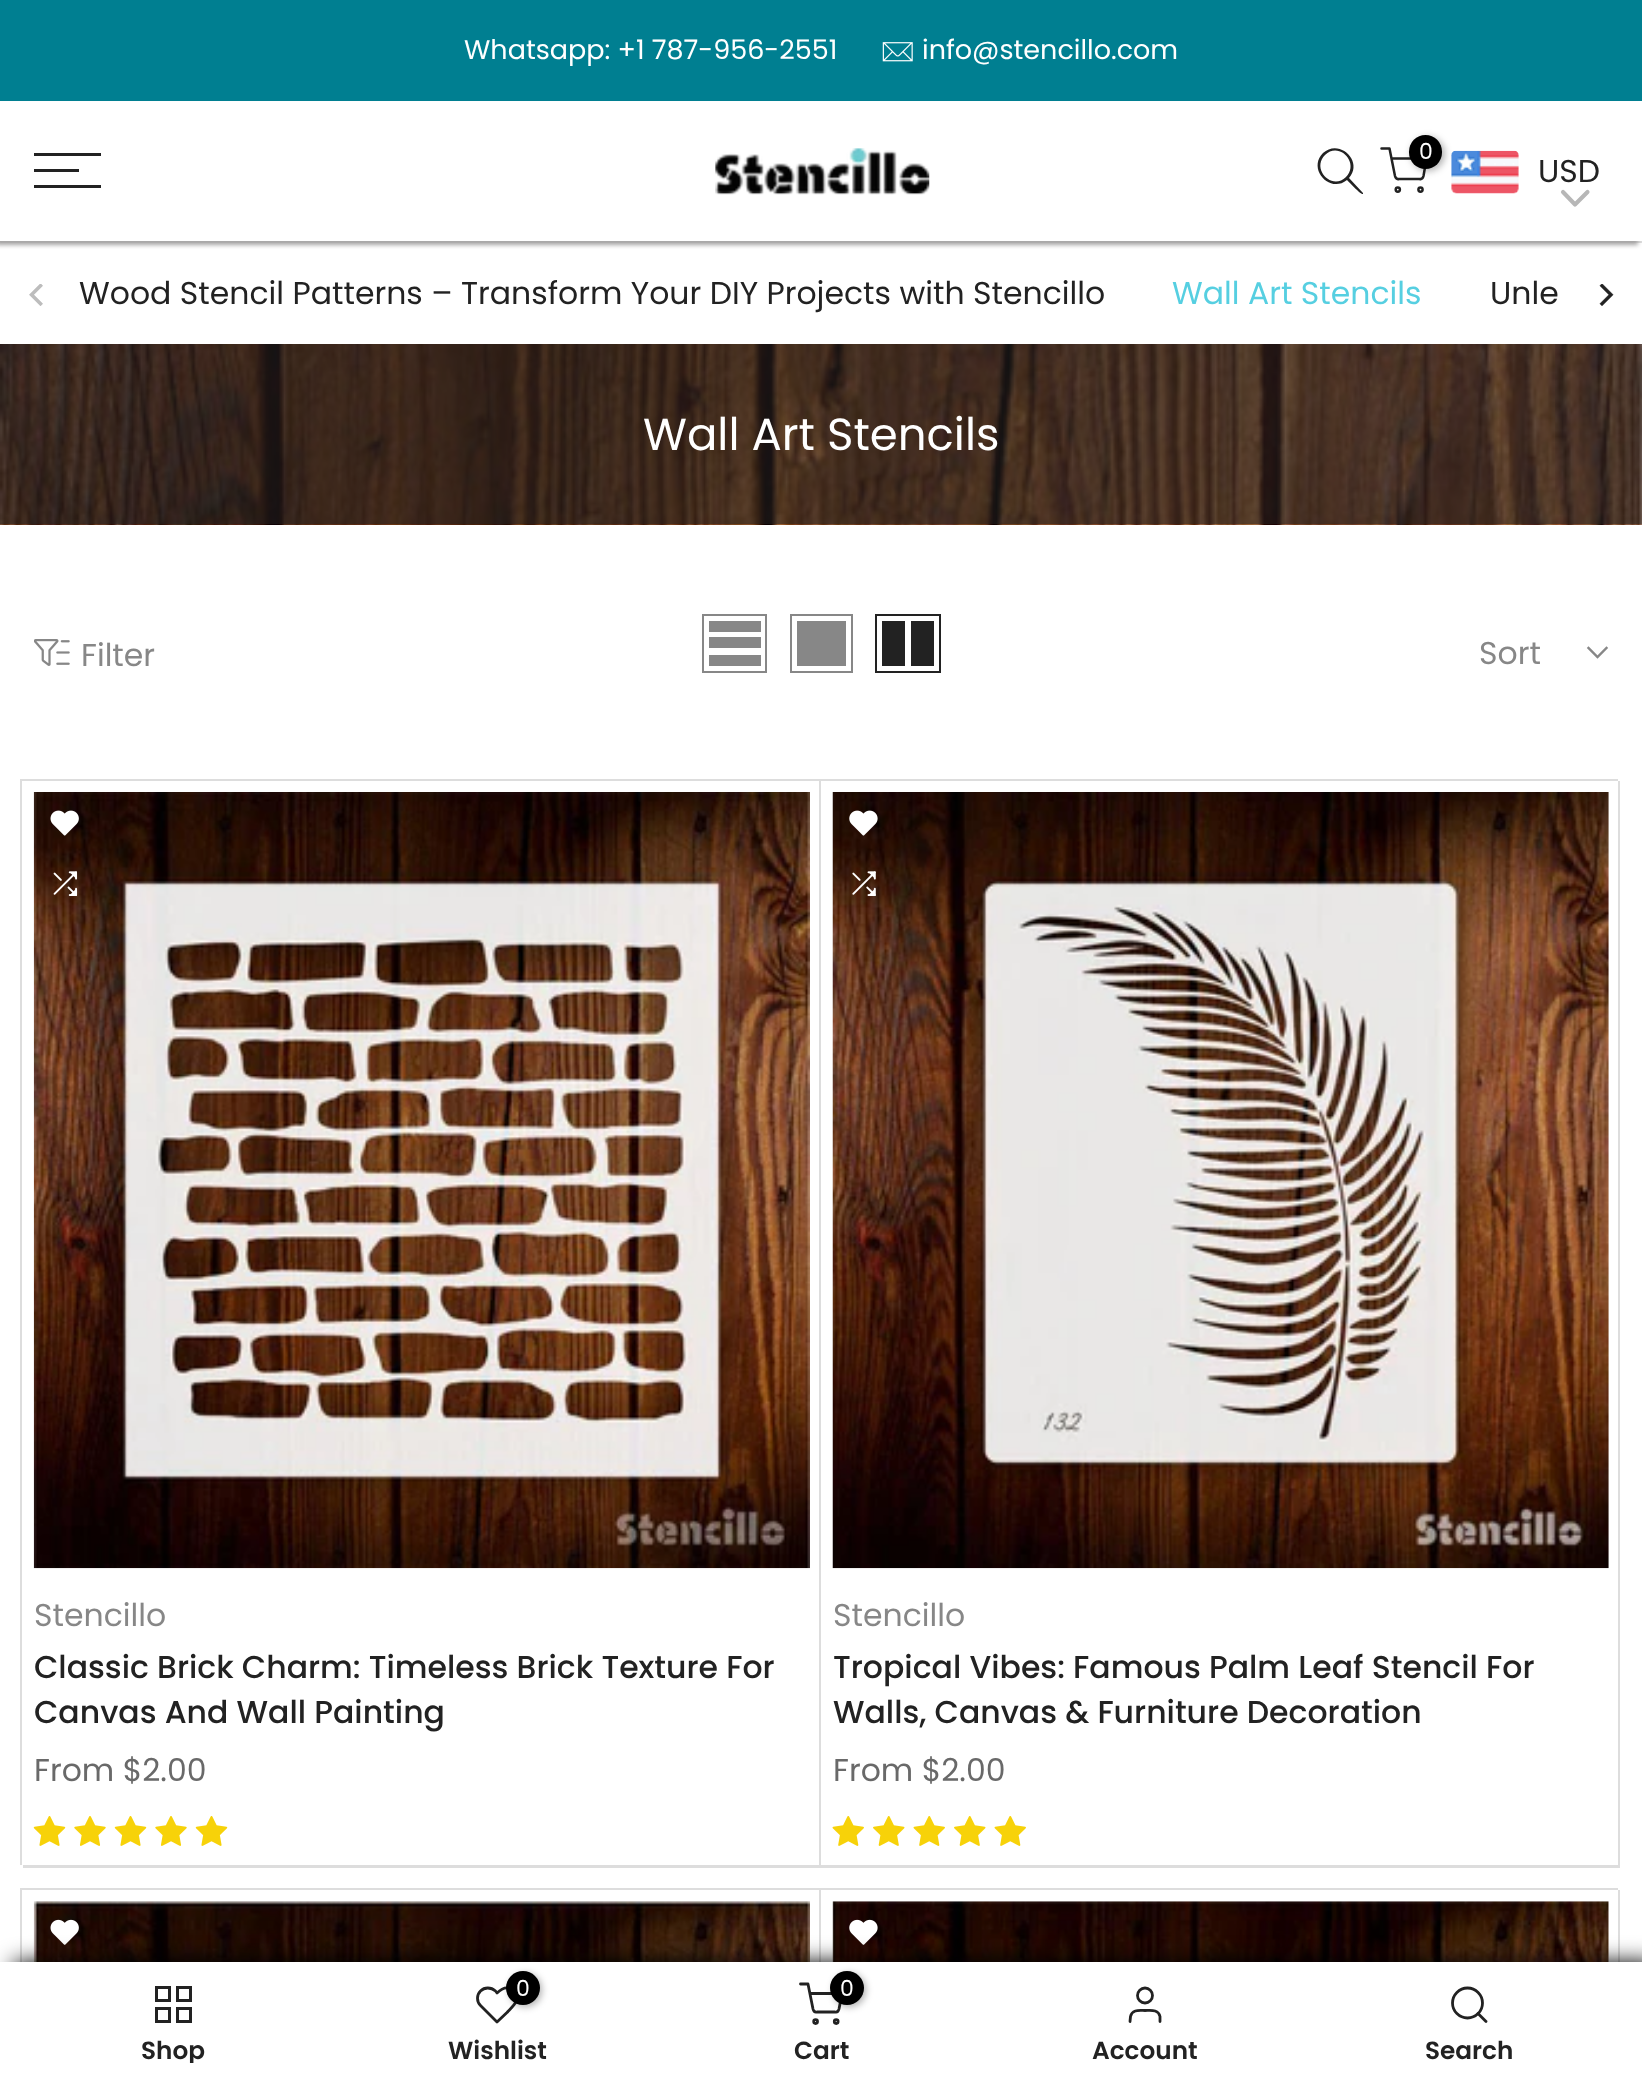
<?xml version="1.0" encoding="UTF-8"?>
<svg xmlns="http://www.w3.org/2000/svg" xmlns:xlink="http://www.w3.org/1999/xlink" width="1642" height="2084">
  <defs>
    <clipPath id="clip1"><rect x="23" y="781" width="798" height="1087" /></clipPath>
    <clipPath id="clip2"><rect x="821" y="781" width="799" height="1087" /></clipPath>
    <clipPath id="clip3"><rect x="821" y="1890" width="799" height="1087" /></clipPath>
    <clipPath id="clip4"><rect x="34" y="2039" width="279" height="24" /></clipPath>
  </defs>
  <rect width="100%" height="100%" fill="#ffffff" />
  <rect width="1642" height="101" fill="#007f91" />
  <image x="882" y="42" width="31" height="20" xlink:href="image1.png" />
  <rect y="241" width="1642" height="2" fill="#dddddd" />
  <rect x="-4" y="106" width="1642" height="139" fill="#a5a4a4" filter="blur(2px)" />
  <rect y="102" width="1642" height="139" fill="#ffffff" />
  <rect x="34" y="153" width="67" height="3" fill="#222222" />
  <rect x="34" y="169" width="45" height="3" fill="#222222" />
  <rect x="34" y="185" width="67" height="3" fill="#222222" />
  <image x="715" y="148" width="215" height="47" xlink:href="image2.png" />
  <path d="M 1346 177 c -14 14 -35 -8 -21 -22 c 14 -14 35 8 21 22 z m 1 3 c -17 14 -40 -11 -24 -27 c 16 -15 41 8 26 25 l 14 15 v 1 c -2 1 -14 -12 -16 -14 z" fill="#222222" fill-rule="evenodd" />
  <path d="M 1381.5 148.5 h 8 l 5.5 27.5 c 0.5 2 2 3.5 4 3 h 20.5 c 2 0.5 3.5 -1 4 -3 l 3 -17.5 h -35" fill="none" stroke="#222222" stroke-width="2.5" stroke-linecap="round" stroke-linejoin="round" />
  <rect x="1411" y="137" width="34" height="34" rx="17" fill="#000000" fill-opacity="0.3" filter="blur(3.5px)" />
  <rect x="1409" y="135" width="33" height="34" rx="16.5" fill="#000000" />
  <circle cx="1397.8" cy="189.6" r="2.1" fill="none" stroke="#222222" stroke-width="2.5" />
  <circle cx="1420.5" cy="189.6" r="2.1" fill="none" stroke="#222222" stroke-width="2.5" />
  <image x="1451" y="150" width="68" height="44" xlink:href="image3.png" />
  <path d="M 1563 192 l 12 12.5 l 12.5 -12.5" fill="none" stroke="#b7b7b7" stroke-width="4.1" stroke-linecap="round" stroke-linejoin="round" />
  <image x="29" y="284" width="14" height="22" xlink:href="image4.png" />
  <image x="1599" y="284" width="15" height="22" xlink:href="image5.png" />
  <image x="0" y="344" width="1642" height="181" xlink:href="image6.png" />
  <image x="34" y="639" width="36" height="27" xlink:href="image7.png" />
  <rect x="703" y="615" width="63" height="57" fill="none" stroke="#878787" stroke-width="2" />
  <rect x="709" y="655" width="52" height="11" fill="#878787" />
  <rect x="709" y="637" width="52" height="11" fill="#878787" />
  <rect x="709" y="621" width="52" height="11" fill="#878787" />
  <rect x="791" y="615" width="61" height="57" fill="none" stroke="#878787" stroke-width="2" />
  <rect x="797" y="621" width="49" height="45" fill="#878787" />
  <rect x="876" y="615" width="64" height="57" fill="none" stroke="#222222" stroke-width="2" />
  <rect x="911" y="621" width="23" height="45" fill="#222222" />
  <rect x="882" y="621" width="23" height="45" fill="#222222" />
  <path d="M 1606.5 648 l -9 9 l -9 -9" fill="none" stroke="#878787" stroke-width="2.4" stroke-linecap="square" />
  <path d="M 20 779 v 1086 h 2 v -1084 h 797 v -2 z" fill="#dddddd" />
  <g clip-path="url(#clip1)">
    <path d="M -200 558 h 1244 v 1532 h -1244 z m 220 220 h 799 v 1087 h -799 z" fill="#dddddd" fill-rule="evenodd" />
  </g>
  <image x="33" y="792" width="777" height="777" xlink:href="image8.png" />
  <image x="50" y="810" width="29" height="26" xlink:href="image9.png" />
  <image x="53" y="871" width="25" height="25" xlink:href="image10.png" />
  <image x="33" y="1816" width="33" height="30" xlink:href="image11.png" />
  <image x="74" y="1816" width="32" height="30" xlink:href="image12.png" />
  <image x="114" y="1816" width="33" height="30" xlink:href="image11.png" />
  <image x="155" y="1816" width="32" height="30" xlink:href="image12.png" />
  <image x="195" y="1816" width="33" height="30" xlink:href="image11.png" />
  <path d="M 819 779 v 1086 h 2 v -1084 h 797 v -2 z" fill="#dddddd" />
  <g clip-path="url(#clip2)">
    <path d="M 598 558 h 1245 v 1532 h -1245 z m 221 220 h 799 v 1087 h -799 z" fill="#dddddd" fill-rule="evenodd" />
  </g>
  <image x="832" y="792" width="777" height="777" xlink:href="image13.png" />
  <image x="849" y="810" width="29" height="26" xlink:href="image14.png" />
  <image x="852" y="871" width="24" height="25" xlink:href="image15.png" />
  <image x="832" y="1816" width="32" height="30" xlink:href="image16.png" />
  <image x="873" y="1816" width="32" height="30" xlink:href="image17.png" />
  <image x="913" y="1816" width="32" height="30" xlink:href="image16.png" />
  <image x="954" y="1816" width="32" height="30" xlink:href="image17.png" />
  <image x="994" y="1816" width="32" height="30" xlink:href="image16.png" />
  <path d="M 20 1888 v 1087 h 2 v -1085 h 797 v -2 z" fill="#dddddd" />
  <image x="33" y="1901" width="777" height="61" xlink:href="image18.png" />
  <image x="50" y="1919" width="29" height="26" xlink:href="image19.png" />
  <path d="M 819 1888 v 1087 h 2 v -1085 h 797 v -2 z" fill="#dddddd" />
  <g clip-path="url(#clip3)">
    <path d="M 598 1667 h 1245 v 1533 h -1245 z m 221 221 h 799 v 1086 h -799 z" fill="#dddddd" fill-rule="evenodd" />
  </g>
  <image x="832" y="1901" width="777" height="61" xlink:href="image20.png" />
  <image x="849" y="1919" width="29" height="26" xlink:href="image21.png" />
  <rect x="14" y="1962" width="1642" height="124" fill="#000000" filter="blur(11px)" />
  <rect y="1962" width="1642" height="122" fill="#ffffff" />
  <rect x="156.5" y="1987.5" width="13" height="13" fill="none" stroke="#222222" stroke-width="3" />
  <rect x="177.5" y="1987.5" width="13" height="13" fill="none" stroke="#222222" stroke-width="3" />
  <rect x="156.5" y="2008.5" width="13" height="13" fill="none" stroke="#222222" stroke-width="3" />
  <rect x="177.5" y="2008.5" width="13" height="13" fill="none" stroke="#222222" stroke-width="3" />
  <path d="M 514 1991 c -6 -5.5 -12 -3 -17 2 l -1.5 -2 c -4.5 -4 -11 -4 -15 0 c -4 4 -4 10.5 0 14.5 l 16.5 16.5 l 10 -9.5 c 5.5 -6 15 -13.5 7 -21.5 z" fill="none" stroke="#222222" stroke-width="2.8" stroke-linecap="round" stroke-linejoin="round" />
  <rect x="509" y="1973" width="33" height="34" rx="16.5" fill="#000000" fill-opacity="0.3" filter="blur(3.5px)" />
  <circle cx="523" cy="1988" r="17" fill="#000000" />
  <path d="M 800.5 1984 h 7.5 l 5 25 c 0.5 2 2 3.5 4 3 h 18 c 2 0.5 3.5 -1 4 -3 l 3 -15.5 h -32" fill="none" stroke="#222222" stroke-width="2.8" stroke-linecap="round" stroke-linejoin="round" />
  <circle cx="836.2" cy="2021.6" r="1.9" fill="none" stroke="#222222" stroke-width="2.8" />
  <rect x="833" y="1973" width="33" height="34" rx="16.5" fill="#000000" fill-opacity="0.3" filter="blur(3.5px)" />
  <circle cx="847" cy="1988" r="17" fill="#000000" />
  <circle cx="815.6" cy="2021.6" r="1.9" fill="none" stroke="#222222" stroke-width="2.8" />
  <circle cx="1145" cy="1995.5" r="7.5" fill="none" stroke="#222222" stroke-width="2.8" />
  <path d="M 1160 2021.5 v -5 c -1.5 -7.5 -9.5 -6 -15 -6 c -5 0 -13 -1.5 -14.5 6 l -0.5 5" fill="none" stroke="#222222" stroke-width="2.8" stroke-linecap="round" stroke-linejoin="round" />
  <circle cx="1467.5" cy="2003" r="15" fill="none" stroke="#222222" stroke-width="2.8" />
  <path d="M 1486 2021.5 l -8 -8" fill="none" stroke="#222222" stroke-width="2.8" stroke-linecap="round" stroke-linejoin="round" />
  <text x="464" y="59" style="font-family: Poppins; font-size: 27px; fill: #ffffff">Whatsapp: +1 787-956-2551</text>
  <text x="922" y="59" style="font-family: Poppins; font-size: 27px; fill: #ffffff">info@stencillo.com</text>
  <text x="1419" y="159" style="font-family: Poppins; font-size: 22px; fill: #ffffff">0</text>
  <text x="1538" y="182" style="font-family: Poppins; font-size: 31.5px; fill: #222222">USD</text>
  <text x="79" y="304" style="font-family: Poppins; font-size: 31.5px; fill: #222222">Wood Stencil Patterns – Transform Your DIY Projects with Stencillo</text>
  <text x="1172" y="304" style="font-family: Poppins; font-size: 31.5px; fill: #56cfe1">Wall Art Stencils</text>
  <text x="1490" y="304" style="font-family: Poppins; font-size: 31.5px; fill: #222222">Unle</text>
  <text x="643" y="450" style="font-family: Poppins; font-size: 45px; fill: #ffffff">Wall Art Stencils</text>
  <text x="81" y="666" style="font-family: Poppins; font-size: 31.5px; fill: #878787">Filter</text>
  <text x="1479" y="664" style="font-family: Poppins; font-size: 31.5px; fill: #878787">Sort</text>
  <text x="34" y="1626" style="font-family: Poppins; font-size: 31.5px; fill: #878787">Stencillo</text>
  <text x="34" y="1678" style="font-family: Poppins; font-size: 31.5px; font-weight: 500; fill: #222222">Classic Brick Charm: Timeless Brick Texture For</text>
  <text x="34" y="1723" style="font-family: Poppins; font-size: 31.5px; font-weight: 500; fill: #222222">Canvas And Wall Painting</text>
  <text x="34" y="1781" style="font-family: Poppins; font-size: 31.5px; fill: #696969">From $2.00</text>
  <text x="833" y="1626" style="font-family: Poppins; font-size: 31.5px; fill: #878787">Stencillo</text>
  <text x="833" y="1678" style="font-family: Poppins; font-size: 31.5px; font-weight: 500; fill: #222222">Tropical Vibes: Famous Palm Leaf Stencil For</text>
  <text x="833" y="1723" style="font-family: Poppins; font-size: 31.5px; font-weight: 500; fill: #222222">Walls, Canvas &amp; Furniture Decoration</text>
  <text x="833" y="1781" style="font-family: Poppins; font-size: 31.5px; fill: #696969">From $2.00</text>
  <g clip-path="url(#clip4)">
    <text x="141" y="2059" style="font-family: Poppins; font-size: 24.75px; font-weight: 600; fill: #222222">Shop</text>
  </g>
  <text x="516" y="1996" style="font-family: Poppins; font-size: 22px; fill: #ffffff">0</text>
  <text x="448" y="2059" style="font-family: Poppins; font-size: 24.75px; font-weight: 600; fill: #222222">Wishlist</text>
  <text x="840" y="1996" style="font-family: Poppins; font-size: 22px; fill: #ffffff">0</text>
  <text x="794" y="2059" style="font-family: Poppins; font-size: 24.75px; font-weight: 600; fill: #222222">Cart</text>
  <text x="1092" y="2059" style="font-family: Poppins; font-size: 24.75px; font-weight: 600; fill: #222222">Account</text>
  <text x="1425" y="2059" style="font-family: Poppins; font-size: 24.75px; font-weight: 600; fill: #222222">Search</text>
</svg>
